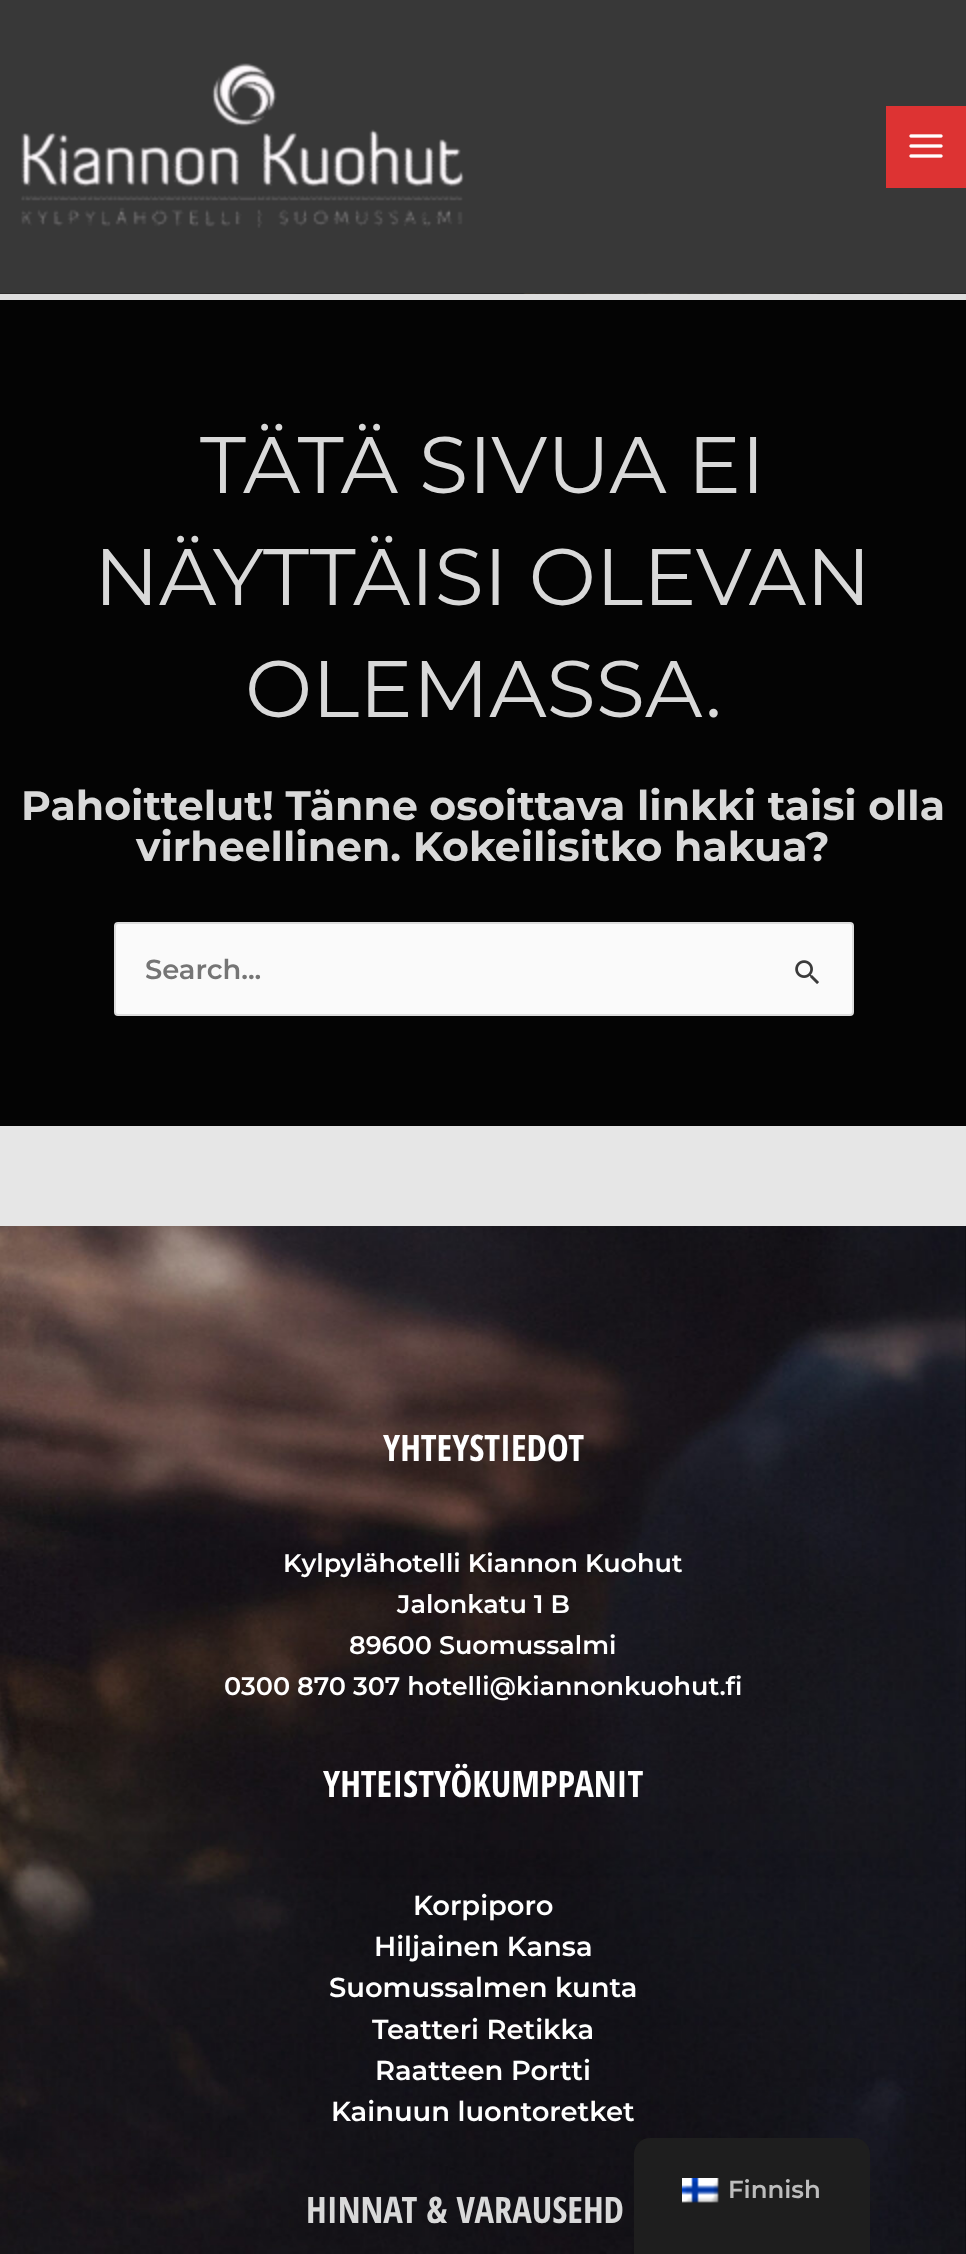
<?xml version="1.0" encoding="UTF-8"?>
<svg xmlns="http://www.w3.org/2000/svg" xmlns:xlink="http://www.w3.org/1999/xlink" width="966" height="2254">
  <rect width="100%" height="100%" fill="#040404" />
  <image x="0" y="0" width="966" height="294" xlink:href="image1.png" />
  <rect y="294" width="966" height="6" fill="#dddddd" />
  <image x="21" y="63" width="443" height="165" xlink:href="image2.png" />
  <rect x="886" y="106" width="80" height="82" fill="#dd3333" />
  <image x="909" y="134" width="34" height="24" xlink:href="image3.png" />
  <rect x="115" y="923" width="738" height="92" rx="3" fill="#fafafa" stroke="#dddddd" stroke-width="2" />
  <image x="795" y="960" width="24" height="24" xlink:href="image4.png" />
  <image x="0" y="1226" width="966" height="1028" xlink:href="image5.png" />
  <rect y="1126" width="966" height="100" fill="#e6e6e6" />
  <path d="M 650 2138 h 204 c 9 0 16 7 16 16 v 100 h -236 v -100 c 0 -9 7 -16 16 -16 z" fill="#1e1e1e" />
  <image x="682" y="2178" width="37" height="25" xlink:href="image6.png" />
  <text x="200" y="493" style="font-family: Montserrat; font-size: 80px; fill: #d9d9d9">TÄTÄ SIVUA EI</text>
  <text x="94" y="605" style="font-family: Montserrat; font-size: 80px; fill: #d9d9d9">NÄYTTÄISI OLEVAN</text>
  <text x="245" y="717" style="font-family: Montserrat; font-size: 80px; fill: #d9d9d9">OLEMASSA.</text>
  <text x="21" y="820" style="font-family: Montserrat; font-size: 41px; font-weight: bold; fill: #d9d9d9">Pahoittelut! Tänne osoittava linkki taisi olla</text>
  <text x="136" y="861" style="font-family: Montserrat; font-size: 41px; font-weight: bold; fill: #d9d9d9">virheellinen. Kokeilisitko hakua?</text>
  <text x="145" y="979" style="font-family: Montserrat; font-size: 27.4px; font-weight: 600; fill: #757575">Search...</text>
  <text x="383" y="1461" style="font-family: Open Sans Condensed; font-size: 36.5px; font-weight: bold; fill: #ffffff">YHTEYSTIEDOT</text>
  <text x="283" y="1572" style="font-family: Montserrat; font-size: 25.5px; font-weight: 600; fill: #ffffff">Kylpylähotelli Kiannon Kuohut</text>
  <text x="397" y="1613" style="font-family: Montserrat; font-size: 25.5px; font-weight: 600; fill: #ffffff">Jalonkatu 1 B</text>
  <text x="349" y="1654" style="font-family: Montserrat; font-size: 25.5px; font-weight: 600; fill: #ffffff">89600 Suomussalmi</text>
  <text x="224" y="1695" style="font-family: Montserrat; font-size: 25.5px; font-weight: 600; fill: #ffffff">0300 870 307 hotelli@kiannonkuohut.fi</text>
  <text x="323" y="1797" style="font-family: Open Sans Condensed; font-size: 36.5px; font-weight: bold; fill: #ffffff">YHTEISTYÖKUMPPANIT</text>
  <text x="413" y="1915" style="font-family: Montserrat; font-size: 27.4px; font-weight: 600; fill: #ffffff">Korpiporo</text>
  <text x="374" y="1956" style="font-family: Montserrat; font-size: 27.4px; font-weight: 600; fill: #ffffff">Hiljainen Kansa</text>
  <text x="329" y="1997" style="font-family: Montserrat; font-size: 27.4px; font-weight: 600; fill: #ffffff">Suomussalmen kunta</text>
  <text x="372" y="2039" style="font-family: Montserrat; font-size: 27.4px; font-weight: 600; fill: #ffffff">Teatteri Retikka</text>
  <text x="375" y="2080" style="font-family: Montserrat; font-size: 27.4px; font-weight: 600; fill: #ffffff">Raatteen Portti</text>
  <text x="331" y="2121" style="font-family: Montserrat; font-size: 27.4px; font-weight: 600; fill: #ffffff">Kainuun luontoretket</text>
  <text x="306" y="2223" style="font-family: Open Sans Condensed; font-size: 36.5px; font-weight: bold; fill: #d9d9d9">HINNAT &amp; VARAUSEHD</text>
  <text x="728" y="2198" style="font-family: Montserrat; font-size: 24.5px; font-weight: 600; fill: #bdbdbd">Finnish</text>
</svg>
